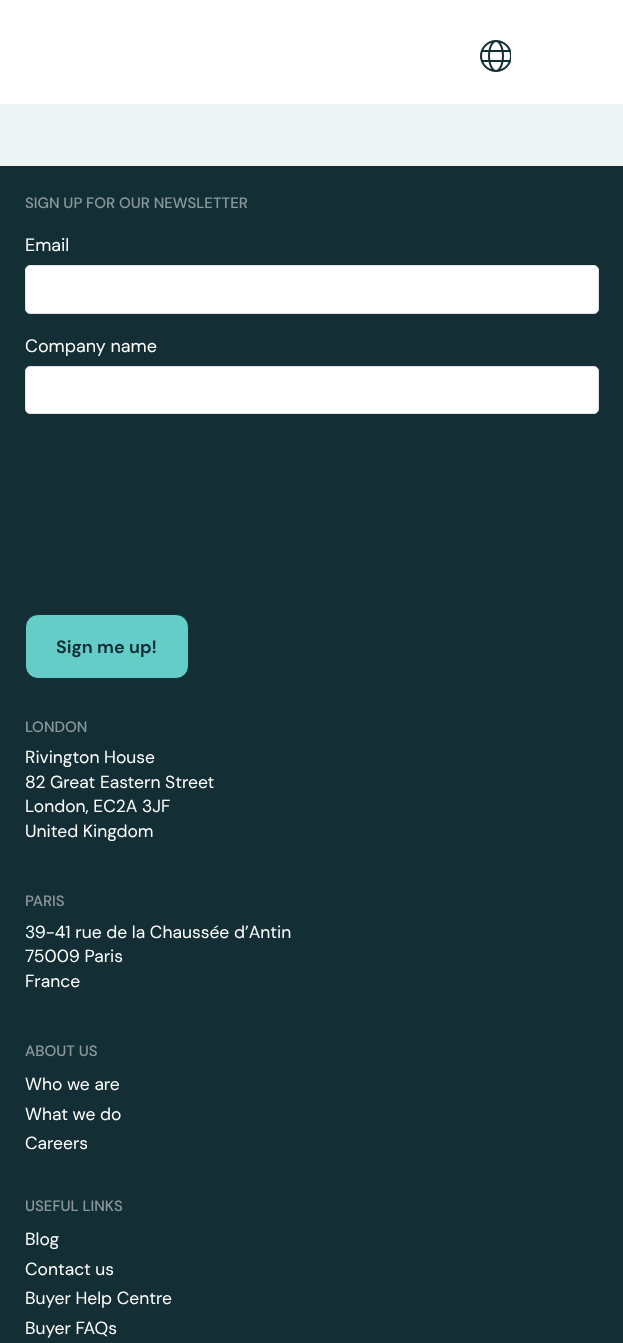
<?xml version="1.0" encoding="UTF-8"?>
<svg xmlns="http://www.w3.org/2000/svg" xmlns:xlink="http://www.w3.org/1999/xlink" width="623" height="1343">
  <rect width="100%" height="100%" fill="#132e34" />
  <rect width="623" height="104" fill="#ffffff" />
  <image x="480" y="40" width="31" height="32" xlink:href="image1.png" />
  <rect y="104" width="623" height="62" fill="#edf6f4" />
  <rect x="25.5" y="265.5" width="573" height="48" rx="4.5" fill="#ffffff" stroke="#e3e3e3" />
  <rect x="25.5" y="366.5" width="573" height="47" rx="4.5" fill="#ffffff" stroke="#e3e3e3" />
  <rect x="25.5" y="614.5" width="163" height="64" rx="12.5" fill="#64cdc8" stroke="#132e34" />
  <text x="25" y="208" style="font-family: DM Sans; font-size: 15px; font-weight: 500; fill: #89979a">SIGN UP FOR OUR NEWSLETTER</text>
  <text x="25" y="251" style="font-family: DM Sans; font-size: 18px; fill: #ffffff">Email</text>
  <text x="25" y="352" style="font-family: DM Sans; font-size: 18px; fill: #ffffff">Company name</text>
  <text x="56" y="653" style="font-family: DM Sans; font-size: 18px; font-weight: bold; fill: #132e34">Sign me up!</text>
  <text x="25" y="732" style="font-family: DM Sans; font-size: 15px; font-weight: 500; fill: #89979a">LONDON</text>
  <text x="25" y="763" style="font-family: DM Sans; font-size: 17.5px; fill: #ffffff">Rivington House</text>
  <text x="25" y="788" style="font-family: DM Sans; font-size: 17.5px; fill: #ffffff">82 Great Eastern Street</text>
  <text x="25" y="812" style="font-family: DM Sans; font-size: 17.5px; fill: #ffffff">London, EC2A 3JF</text>
  <text x="25" y="837" style="font-family: DM Sans; font-size: 17.5px; fill: #ffffff">‍United Kingdom</text>
  <text x="25" y="906" style="font-family: DM Sans; font-size: 15px; font-weight: 500; fill: #89979a">PARIS</text>
  <text x="25" y="938" style="font-family: DM Sans; font-size: 17.5px; fill: #ffffff">39-41 rue de la Chaussée d’Antin</text>
  <text x="25" y="962" style="font-family: DM Sans; font-size: 17.5px; fill: #ffffff">75009 Paris</text>
  <text x="25" y="987" style="font-family: DM Sans; font-size: 17.5px; fill: #ffffff">France</text>
  <text x="25" y="1056" style="font-family: DM Sans; font-size: 15px; font-weight: 500; fill: #89979a">ABOUT US</text>
  <text x="25" y="1090" style="font-family: DM Sans; font-size: 17.5px; fill: #ffffff">Who we are</text>
  <text x="25" y="1120" style="font-family: DM Sans; font-size: 17.5px; fill: #ffffff">What we do</text>
  <text x="25" y="1149" style="font-family: DM Sans; font-size: 17.5px; fill: #ffffff">Careers</text>
  <text x="25" y="1211" style="font-family: DM Sans; font-size: 15px; font-weight: 500; fill: #89979a">USEFUL LINKS</text>
  <text x="25" y="1245" style="font-family: DM Sans; font-size: 17.5px; fill: #ffffff">Blog</text>
  <text x="25" y="1275" style="font-family: DM Sans; font-size: 17.5px; fill: #ffffff">Contact us</text>
  <text x="25" y="1304" style="font-family: DM Sans; font-size: 17.5px; fill: #ffffff">Buyer Help Centre</text>
  <text x="25" y="1334" style="font-family: DM Sans; font-size: 17.5px; fill: #ffffff">Buyer FAQs</text>
</svg>
